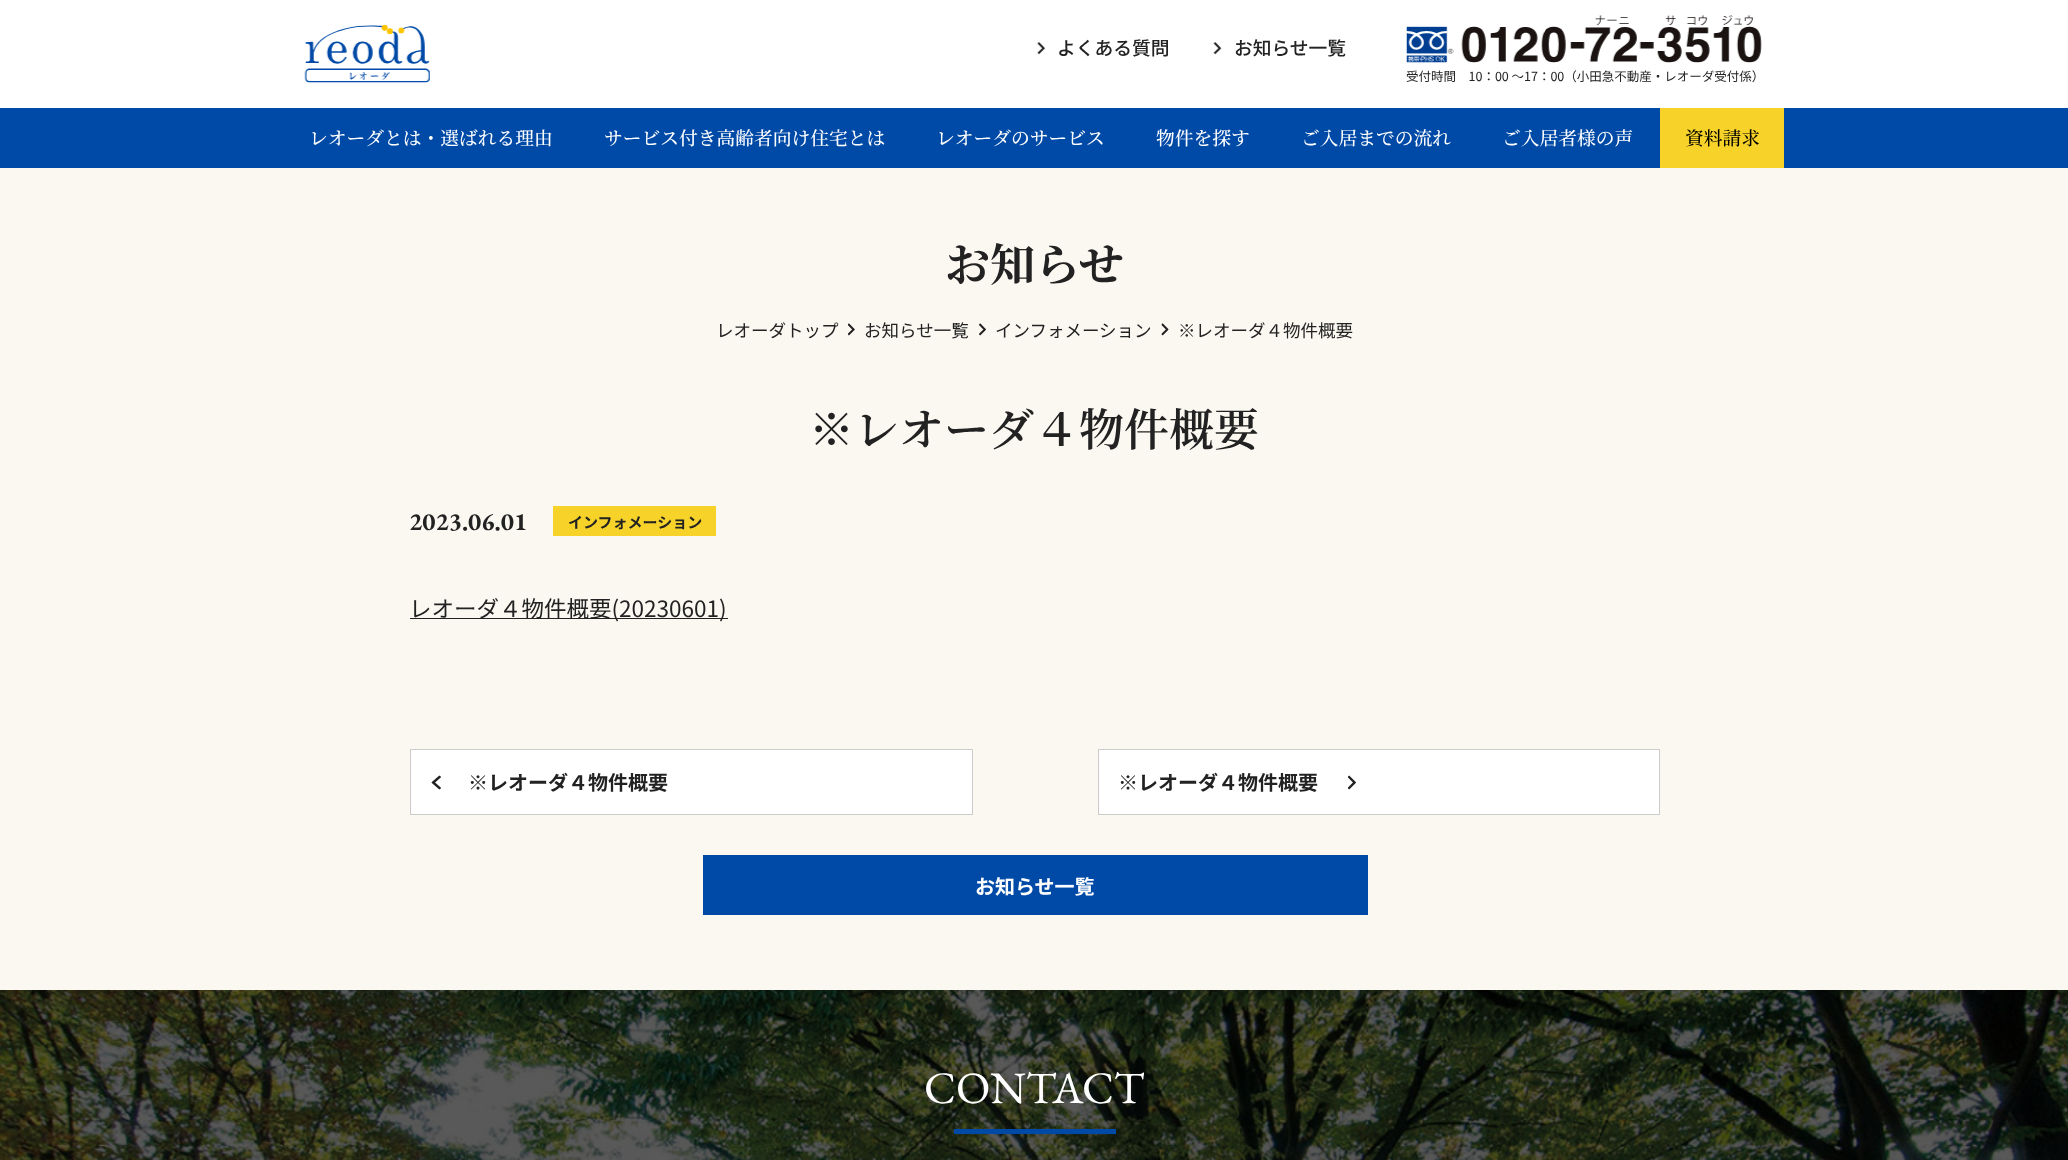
<?xml version="1.0" encoding="UTF-8"?>
<svg xmlns="http://www.w3.org/2000/svg" xmlns:xlink="http://www.w3.org/1999/xlink" width="2068" height="1160">
  <rect width="100%" height="100%" fill="#fbf8f1" />
  <rect width="2068" height="108" fill="#ffffff" />
  <image x="304" y="25" width="126" height="58" xlink:href="image1.png" />
  <image x="1037" y="42" width="8" height="13" xlink:href="image2.png" />
  <image x="1213" y="42" width="9" height="13" xlink:href="image3.png" />
  <image x="1406" y="15" width="356" height="48" xlink:href="image4.png" />
  <rect y="108" width="2068" height="60" fill="#004aa7" />
  <rect x="1660" y="108" width="124" height="60" fill="#f7d329" />
  <image x="848" y="323" width="7" height="13" xlink:href="image5.png" />
  <image x="979" y="323" width="7" height="13" xlink:href="image6.png" />
  <image x="1161" y="323" width="8" height="13" xlink:href="image7.png" />
  <rect x="553" y="506" width="163" height="30" fill="#f7d329" />
  <rect x="410" y="618" width="318" height="1" fill="#222222" />
  <rect x="410.5" y="749.5" width="562" height="65" fill="#ffffff" stroke="#cccccc" />
  <image x="431" y="775" width="10" height="15" xlink:href="image8.png" />
  <rect x="1098.5" y="749.5" width="561" height="65" fill="#ffffff" stroke="#cccccc" />
  <image x="1348" y="775" width="8" height="15" xlink:href="image9.png" />
  <rect x="703" y="855" width="665" height="60" fill="#004aa7" />
  <image x="0" y="990" width="2068" height="170" xlink:href="image10.png" />
  <rect x="954" y="1129" width="162" height="5" fill="#004aa7" />
  <text x="1057" y="55" style="font-family: Noto Sans JP; font-size: 18.75px; font-weight: 500; fill: #222222">よくある質問</text>
  <text x="1234" y="55" style="font-family: Noto Sans JP; font-size: 18.75px; font-weight: 500; fill: #222222">お知らせ一覧</text>
  <text x="1406" y="81" style="font-family: Noto Sans JP; font-size: 12.5px; fill: #222222">受付時間 10：00 ～17：00（小田急不動産・レオーダ受付係）</text>
  <text x="309" y="145" style="font-family: Noto Serif JP; font-size: 18.75px; font-weight: 500; fill: #ffffff">レオーダとは・選ばれる理由</text>
  <text x="604" y="145" style="font-family: Noto Serif JP; font-size: 18.75px; font-weight: 500; fill: #ffffff">サービス付き高齢者向け住宅とは</text>
  <text x="936" y="145" style="font-family: Noto Serif JP; font-size: 18.75px; font-weight: 500; fill: #ffffff">レオーダのサービス</text>
  <text x="1156" y="145" style="font-family: Noto Serif JP; font-size: 18.75px; font-weight: 500; fill: #ffffff">物件を探す</text>
  <text x="1301" y="145" style="font-family: Noto Serif JP; font-size: 18.75px; font-weight: 500; fill: #ffffff">ご入居までの流れ</text>
  <text x="1502" y="145" style="font-family: Noto Serif JP; font-size: 18.75px; font-weight: 500; fill: #ffffff">ご入居者様の声</text>
  <text x="1685" y="145" style="font-family: Noto Serif JP; font-size: 18.75px; font-weight: 500; fill: #000000">資料請求</text>
  <text x="945" y="281" style="font-family: Noto Serif JP; font-size: 45px; font-weight: bold; fill: #222222">お知らせ</text>
  <text x="716" y="337" style="font-family: Noto Sans JP; font-size: 17.5px; fill: #222222">レオーダトップ</text>
  <text x="864" y="337" style="font-family: Noto Sans JP; font-size: 17.5px; fill: #222222">お知らせ一覧</text>
  <text x="995" y="337" style="font-family: Noto Sans JP; font-size: 17.5px; fill: #222222">インフォメーション</text>
  <text x="1178" y="337" style="font-family: Noto Sans JP; font-size: 17.5px; fill: #222222">※レオーダ４物件概要</text>
  <text x="809" y="446" style="font-family: Noto Serif JP; font-size: 45px; font-weight: 600; fill: #222222">※レオーダ４物件概要</text>
  <text x="409" y="530" style="font-family: EB Garamond; font-size: 25px; font-weight: bold; fill: #222222">2023.06.01</text>
  <text x="568" y="528" style="font-family: Noto Sans JP; font-size: 15px; font-weight: bold; fill: #222222">インフォメーション</text>
  <text x="409" y="617" style="font-family: Noto Sans JP; font-size: 22.5px; fill: #222222">レオーダ４物件概要(20230601)</text>
  <text x="468" y="790" style="font-family: Noto Sans JP; font-size: 20px; font-weight: bold; fill: #222222">※レオーダ４物件概要</text>
  <text x="1118" y="790" style="font-family: Noto Sans JP; font-size: 20px; font-weight: bold; fill: #222222">※レオーダ４物件概要</text>
  <text x="975" y="894" style="font-family: Noto Sans JP; font-size: 20px; font-weight: bold; fill: #ffffff">お知らせ一覧</text>
  <text x="924" y="1103" style="font-family: EB Garamond; font-size: 45px; fill: #ffffff">CONTACT</text>
</svg>
